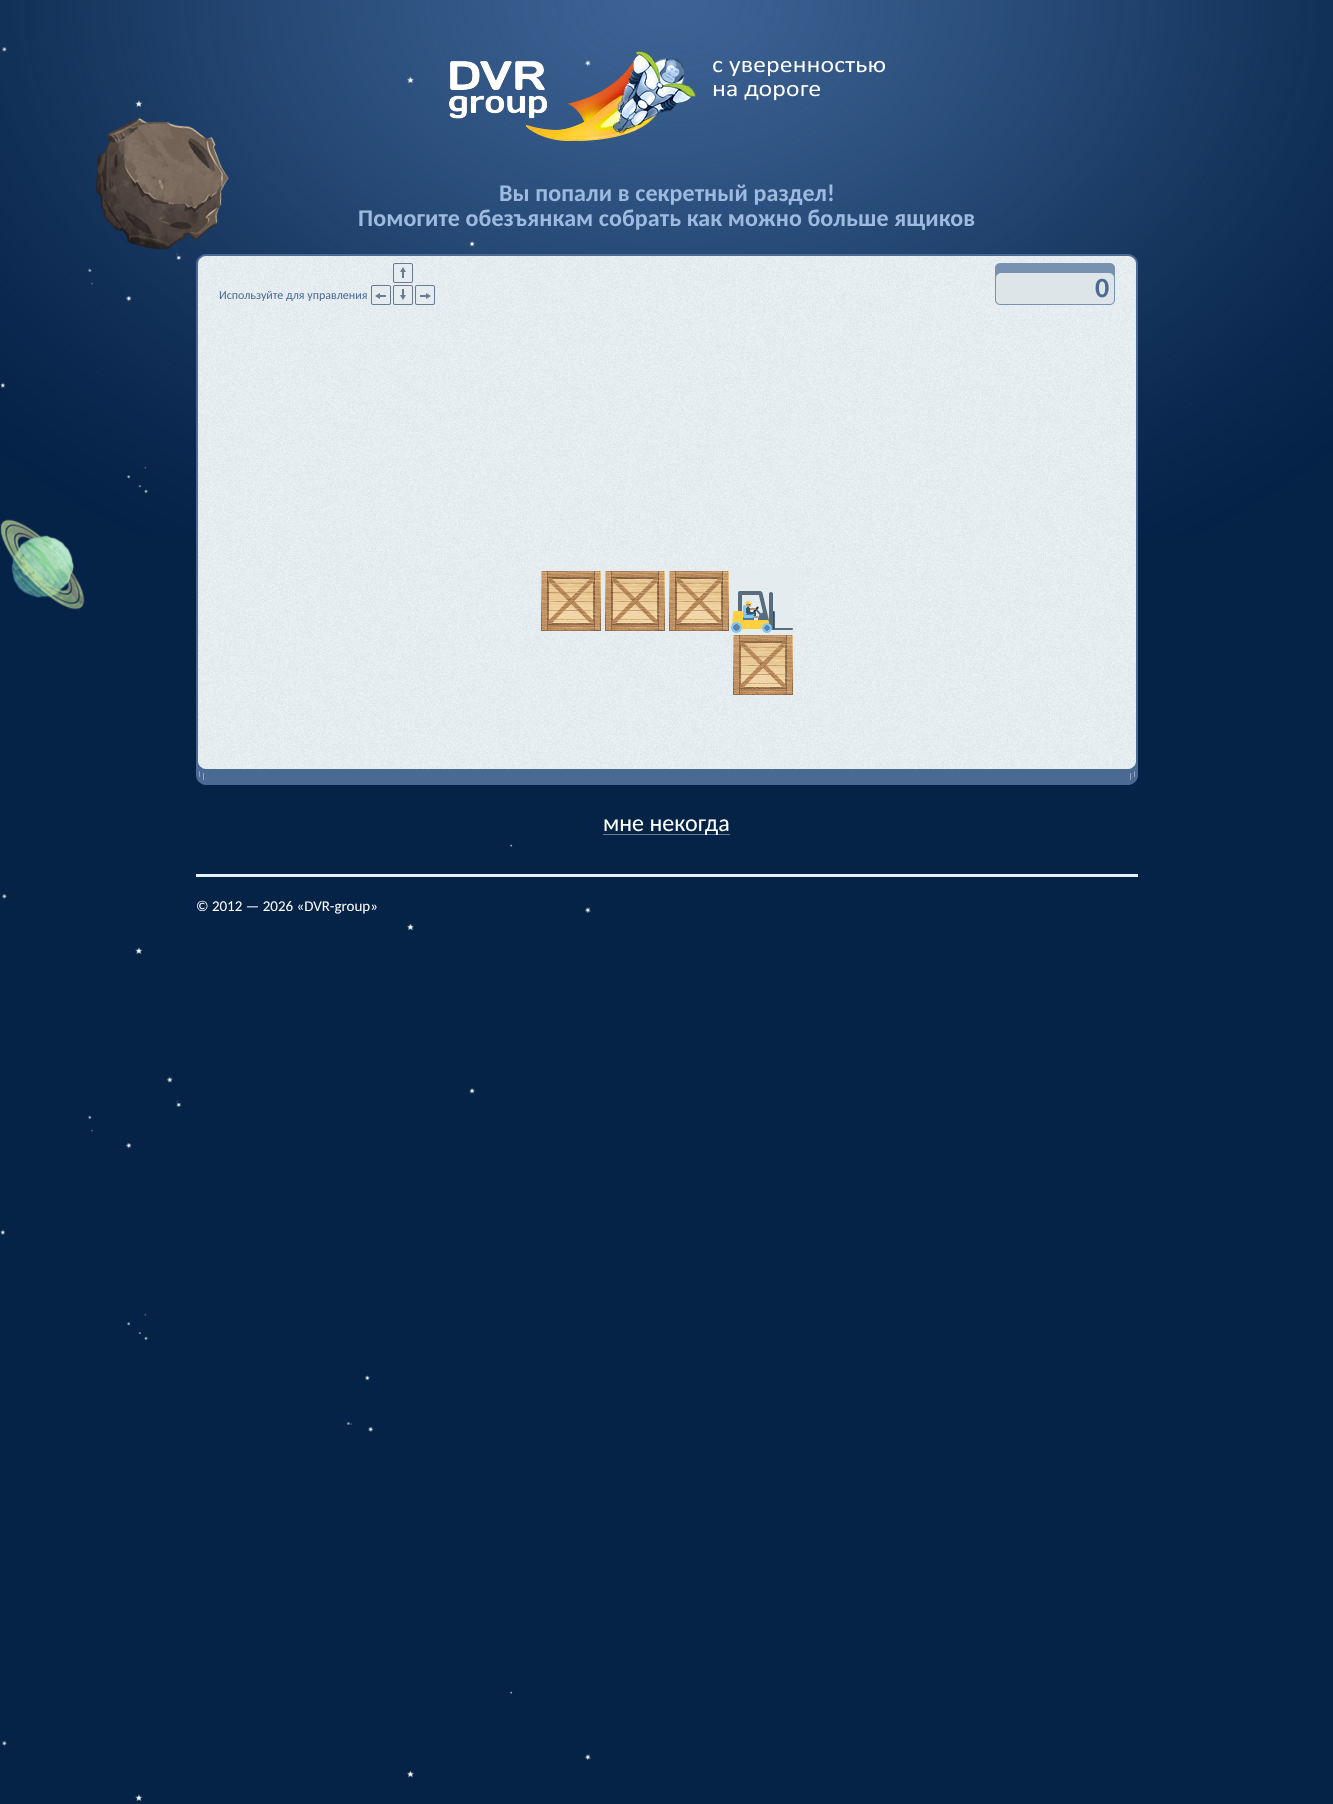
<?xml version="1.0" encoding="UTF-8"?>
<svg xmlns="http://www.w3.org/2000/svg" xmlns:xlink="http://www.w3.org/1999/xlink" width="1333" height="1804">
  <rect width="100%" height="100%" fill="#052247" />
  <image x="0" y="0" width="1333" height="537" xlink:href="image1.png" />
  <image x="0" y="47" width="591" height="1755" xlink:href="image2.png" />
  <image x="0" y="117" width="229" height="493" xlink:href="image3.png" />
  <image x="449" y="51" width="436" height="90" xlink:href="image4.png" />
  <image x="196" y="254" width="942" height="531" xlink:href="image5.png" />
  <image x="371" y="263" width="64" height="42" xlink:href="image6.png" />
  <image x="995" y="263" width="120" height="42" xlink:href="image7.png" />
  <image x="539" y="569" width="64" height="64" xlink:href="image8.png" />
  <image x="603" y="569" width="64" height="64" xlink:href="image8.png" />
  <image x="667" y="569" width="64" height="64" xlink:href="image8.png" />
  <image x="731" y="569" width="64" height="64" xlink:href="image9.png" />
  <image x="731" y="633" width="64" height="64" xlink:href="image10.png" />
  <rect x="603" y="834" width="127" height="1" fill="#697a91" />
  <rect x="196" y="874" width="942" height="3" fill="#e5f2ff" />
  <text x="499" y="201" style="font-family: Carlito; font-size: 24px; font-weight: bold; letter-spacing: 0.1px; fill: #9dbae0">Вы попали в секретный раздел!</text>
  <text x="358" y="226" style="font-family: Carlito; font-size: 24px; font-weight: bold; letter-spacing: 0.1px; fill: #9dbae0">Помогите обезъянкам собрать как можно больше ящиков</text>
  <text x="219" y="299" style="font-family: Carlito; font-size: 12px; fill: #4a6a94">Используйте для управления</text>
  <text x="1095" y="297" style="font-family: Carlito; font-size: 28px; font-weight: bold; fill: #4a6a94">0</text>
  <text x="603" y="831" style="font-family: Carlito; font-size: 24px; fill: #ffffff">мне некогда</text>
  <text x="196" y="911" style="font-family: Carlito; font-size: 15px; fill: #ffffff">© 2012 — 2026 «DVR-group»</text>
</svg>
